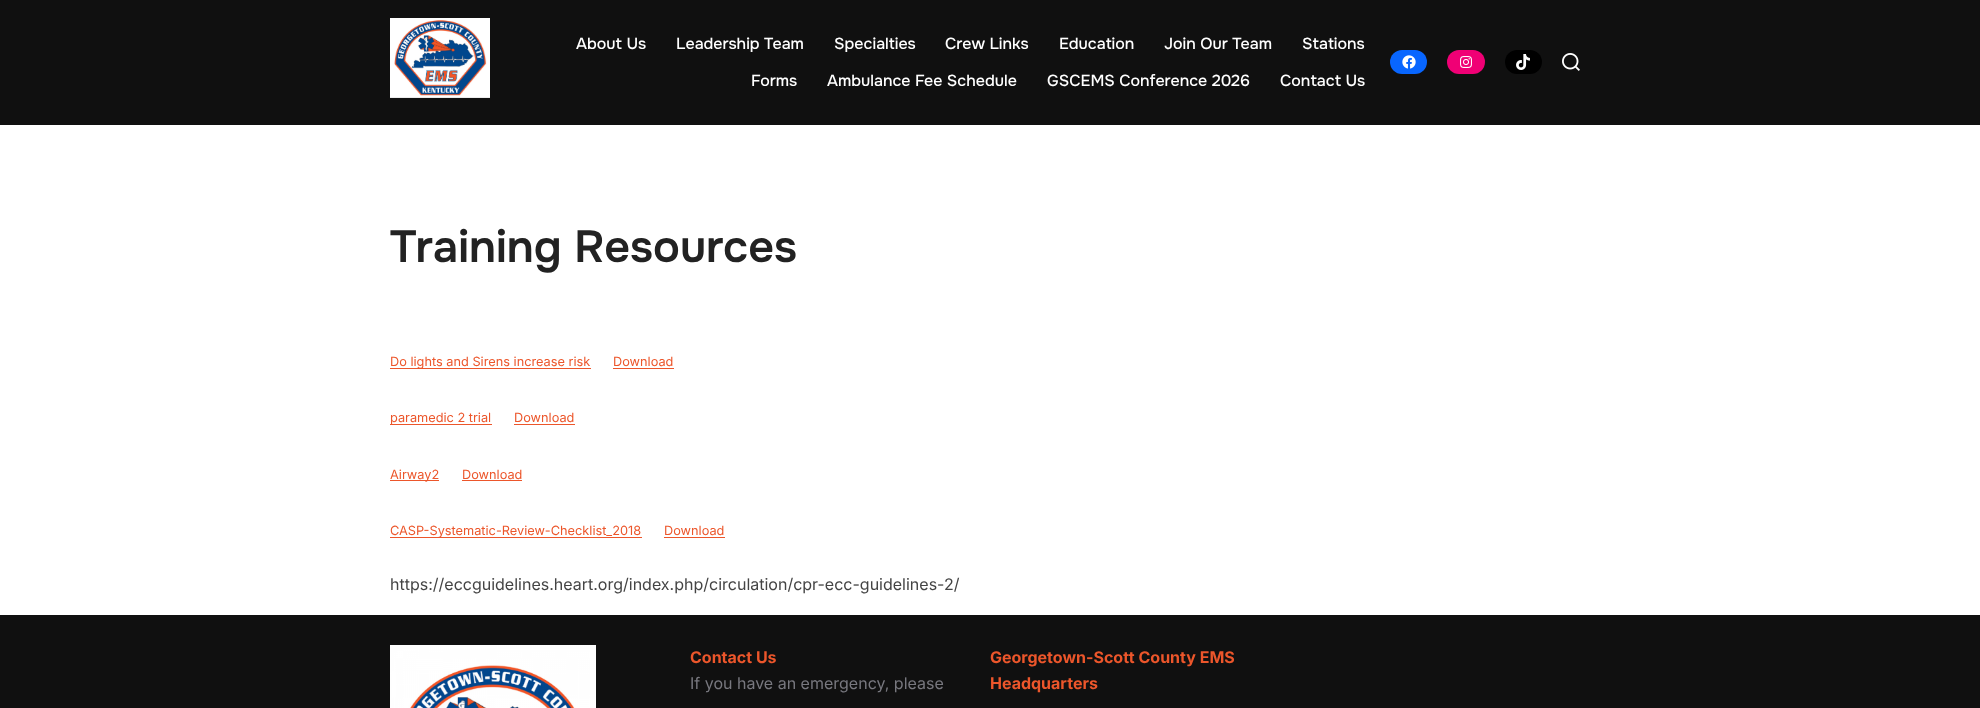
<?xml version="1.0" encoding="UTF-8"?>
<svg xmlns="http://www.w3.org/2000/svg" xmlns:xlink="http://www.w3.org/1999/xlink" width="1980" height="708">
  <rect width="100%" height="100%" fill="#ffffff" />
  <rect width="1980" height="125" fill="#101010" />
  <image x="390" y="18" width="100" height="80" xlink:href="image1.png" />
  <rect x="1390" y="50" width="37" height="24" rx="12" fill="#0866ff" />
  <image x="1402" y="55" width="14" height="14" xlink:href="image2.png" />
  <rect x="1447" y="50" width="38" height="24" rx="12" fill="#f00075" />
  <image x="1460" y="56" width="12" height="12" xlink:href="image3.png" />
  <rect x="1505" y="50" width="37" height="24" rx="12" fill="#000000" />
  <image x="1516" y="54" width="14" height="16" xlink:href="image4.png" />
  <image x="1562" y="53" width="18" height="18" xlink:href="image5.png" />
  <rect x="390" y="368" width="201" height="1" fill="#ec562b" />
  <rect x="613" y="368" width="61" height="1" fill="#ec562b" />
  <rect x="390" y="424" width="102" height="1" fill="#ec562b" />
  <rect x="514" y="424" width="61" height="1" fill="#ec562b" />
  <rect x="390" y="480" width="49" height="1" fill="#ec562b" />
  <rect x="462" y="480" width="60" height="1" fill="#ec562b" />
  <rect x="390" y="537" width="252" height="1" fill="#ec562b" />
  <rect x="664" y="537" width="61" height="1" fill="#ec562b" />
  <rect y="615" width="1980" height="93" fill="#101010" />
  <image x="390" y="645" width="206" height="63" xlink:href="image6.png" />
  <text x="576" y="49" style="font-family: Onest; font-size: 16px; font-weight: 500; fill: #ffffff">About Us</text>
  <text x="676" y="49" style="font-family: Onest; font-size: 16px; font-weight: 500; fill: #ffffff">Leadership Team</text>
  <text x="834" y="49" style="font-family: Onest; font-size: 16px; font-weight: 500; fill: #ffffff">Specialties</text>
  <text x="945" y="49" style="font-family: Onest; font-size: 16px; font-weight: 500; fill: #ffffff">Crew Links</text>
  <text x="1059" y="49" style="font-family: Onest; font-size: 16px; font-weight: 500; fill: #ffffff">Education</text>
  <text x="1164" y="49" style="font-family: Onest; font-size: 16px; font-weight: 500; fill: #ffffff">Join Our Team</text>
  <text x="1302" y="49" style="font-family: Onest; font-size: 16px; font-weight: 500; fill: #ffffff">Stations</text>
  <text x="751" y="86" style="font-family: Onest; font-size: 16px; font-weight: 500; fill: #ffffff">Forms</text>
  <text x="827" y="86" style="font-family: Onest; font-size: 16px; font-weight: 500; fill: #ffffff">Ambulance Fee Schedule</text>
  <text x="1047" y="86" style="font-family: Onest; font-size: 16px; font-weight: 500; fill: #ffffff">GSCEMS Conference 2026</text>
  <text x="1280" y="86" style="font-family: Onest; font-size: 16px; font-weight: 500; fill: #ffffff">Contact Us</text>
  <text x="390" y="262" style="font-family: Onest; font-size: 45px; font-weight: 600; fill: #222222">Training Resources</text>
  <text x="390" y="366" style="font-family: Inter; font-size: 12.75px; fill: #ec562b">Do lights and Sirens increase risk</text>
  <text x="613" y="366" style="font-family: Inter; font-size: 12.75px; fill: #ec562b">Download</text>
  <text x="390" y="422" style="font-family: Inter; font-size: 12.75px; fill: #ec562b">paramedic 2 trial</text>
  <text x="514" y="422" style="font-family: Inter; font-size: 12.75px; fill: #ec562b">Download</text>
  <text x="390" y="479" style="font-family: Inter; font-size: 12.75px; fill: #ec562b">Airway2</text>
  <text x="462" y="479" style="font-family: Inter; font-size: 12.75px; fill: #ec562b">Download</text>
  <text x="390" y="535" style="font-family: Inter; font-size: 12.75px; fill: #ec562b">CASP-Systematic-Review-Checklist_2018</text>
  <text x="664" y="535" style="font-family: Inter; font-size: 12.75px; fill: #ec562b">Download</text>
  <text x="390" y="590" style="font-family: Inter; font-size: 16px; fill: #444444">https://eccguidelines.heart.org/index.php/circulation/cpr-ecc-guidelines-2/</text>
  <text x="690" y="663" style="font-family: Inter; font-size: 16px; font-weight: bold; fill: #ec562b">Contact Us</text>
  <text x="690" y="689" style="font-family: Inter; font-size: 16px; fill: #78787f">If you have an emergency, please</text>
  <text x="990" y="663" style="font-family: Inter; font-size: 16px; font-weight: bold; fill: #ec562b">Georgetown-Scott County EMS</text>
  <text x="990" y="689" style="font-family: Inter; font-size: 16px; font-weight: bold; fill: #ec562b">Headquarters</text>
</svg>
